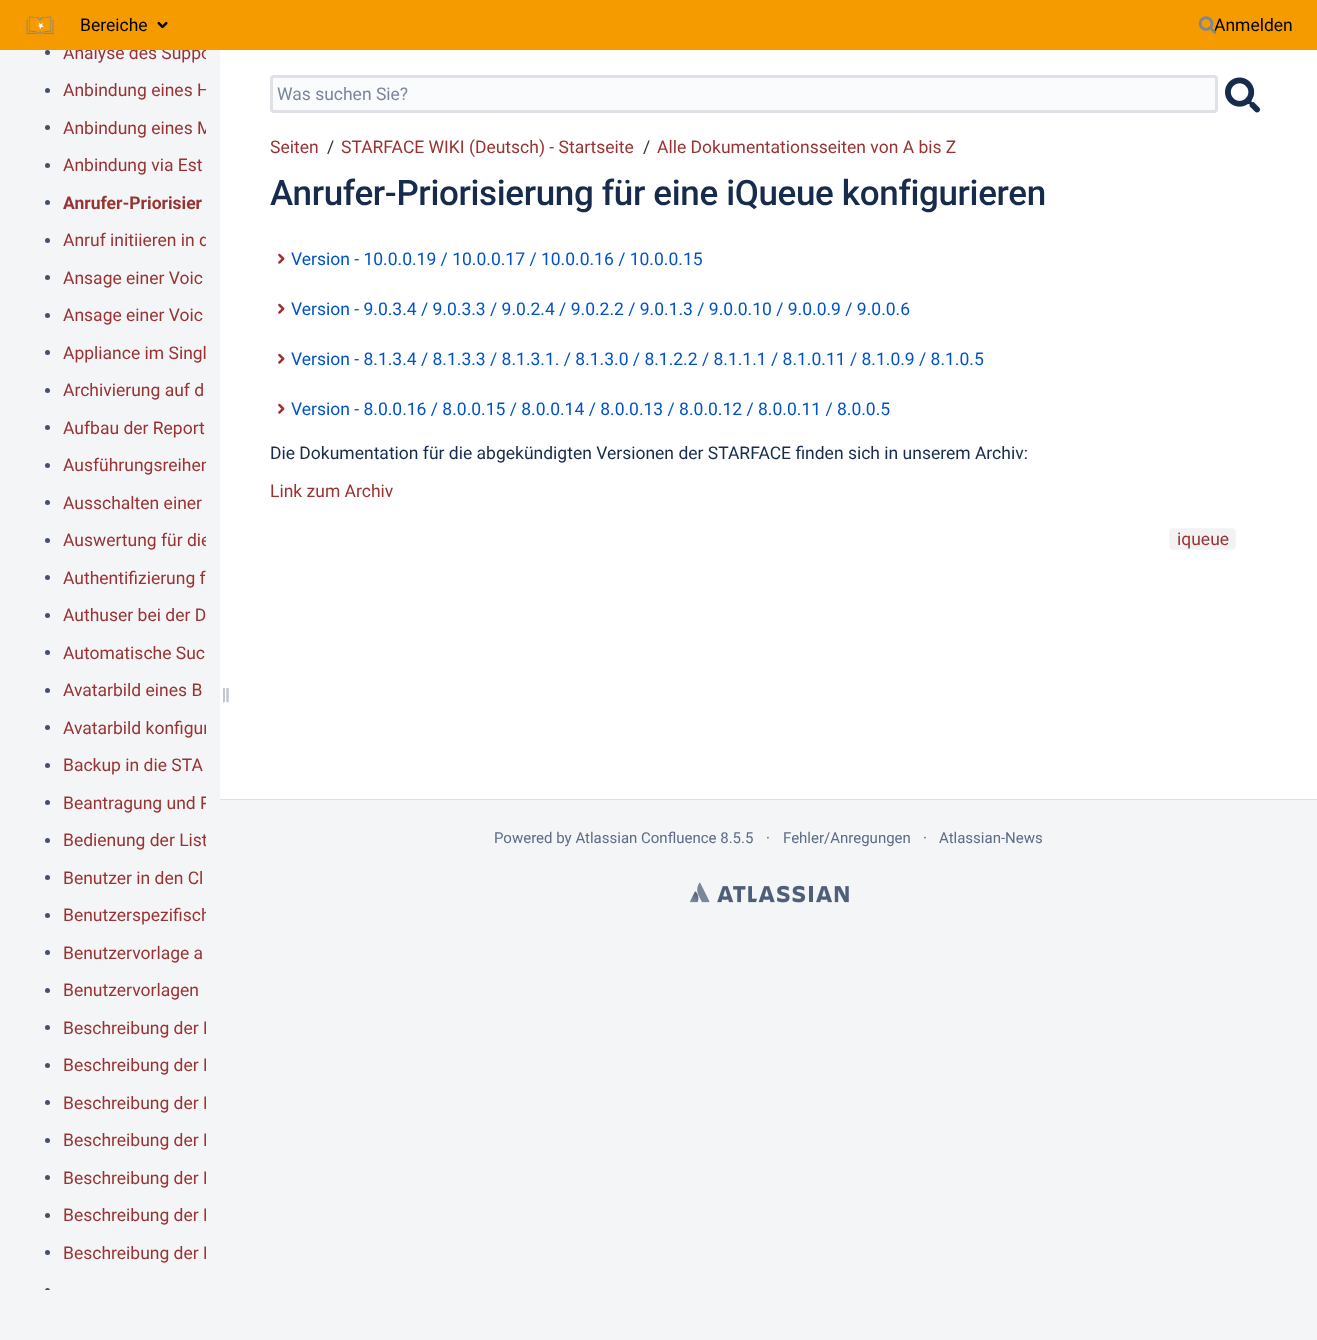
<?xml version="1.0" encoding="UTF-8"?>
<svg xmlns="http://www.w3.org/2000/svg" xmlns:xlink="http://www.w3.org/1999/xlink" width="1317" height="1340">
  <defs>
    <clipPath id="clip1"><rect x="63" y="50" width="143" height="15" /></clipPath>
    <clipPath id="clip2"><rect x="63" y="78" width="143" height="25" /></clipPath>
    <clipPath id="clip3"><rect x="63" y="115" width="143" height="25" /></clipPath>
    <clipPath id="clip4"><rect x="63" y="228" width="143" height="25" /></clipPath>
    <clipPath id="clip5"><rect x="63" y="453" width="143" height="25" /></clipPath>
    <clipPath id="clip6"><rect x="63" y="528" width="143" height="25" /></clipPath>
    <clipPath id="clip7"><rect x="63" y="715" width="143" height="25" /></clipPath>
    <clipPath id="clip8"><rect x="63" y="790" width="143" height="25" /></clipPath>
    <clipPath id="clip9"><rect x="63" y="828" width="143" height="25" /></clipPath>
    <clipPath id="clip10"><rect x="63" y="903" width="143" height="25" /></clipPath>
    <clipPath id="clip11"><rect x="63" y="1015" width="143" height="25" /></clipPath>
    <clipPath id="clip12"><rect x="63" y="1053" width="143" height="25" /></clipPath>
    <clipPath id="clip13"><rect x="63" y="1090" width="143" height="25" /></clipPath>
    <clipPath id="clip14"><rect x="63" y="1128" width="143" height="25" /></clipPath>
    <clipPath id="clip15"><rect x="63" y="1165" width="143" height="25" /></clipPath>
    <clipPath id="clip16"><rect x="63" y="1203" width="143" height="25" /></clipPath>
    <clipPath id="clip17"><rect x="63" y="1240" width="143" height="25" /></clipPath>
  </defs>
  <rect width="100%" height="100%" fill="#f4f5f7" />
  <rect width="1317" height="50" fill="#f59b00" />
  <image x="26" y="16" width="28" height="19" xlink:href="image1.png" />
  <image x="157" y="21" width="11" height="8" xlink:href="image2.png" />
  <circle cx="47.5" cy="52.5" r="2.5" fill="#42526e" />
  <circle cx="47.5" cy="90.5" r="2.5" fill="#42526e" />
  <circle cx="47.5" cy="127.5" r="2.5" fill="#42526e" />
  <circle cx="47.5" cy="165.5" r="2.5" fill="#42526e" />
  <circle cx="47.5" cy="202.5" r="2.5" fill="#42526e" />
  <circle cx="47.5" cy="240.5" r="2.5" fill="#42526e" />
  <circle cx="47.5" cy="277.5" r="2.5" fill="#42526e" />
  <circle cx="47.5" cy="315.5" r="2.5" fill="#42526e" />
  <circle cx="47.5" cy="352.5" r="2.5" fill="#42526e" />
  <circle cx="47.5" cy="390.5" r="2.5" fill="#42526e" />
  <circle cx="47.5" cy="427.5" r="2.5" fill="#42526e" />
  <circle cx="47.5" cy="465.5" r="2.5" fill="#42526e" />
  <circle cx="47.5" cy="502.5" r="2.5" fill="#42526e" />
  <circle cx="47.5" cy="540.5" r="2.5" fill="#42526e" />
  <circle cx="47.5" cy="577.5" r="2.5" fill="#42526e" />
  <circle cx="47.5" cy="615.5" r="2.5" fill="#42526e" />
  <circle cx="47.5" cy="652.5" r="2.5" fill="#42526e" />
  <circle cx="47.5" cy="690.5" r="2.5" fill="#42526e" />
  <circle cx="47.5" cy="727.5" r="2.5" fill="#42526e" />
  <circle cx="47.5" cy="765.5" r="2.5" fill="#42526e" />
  <circle cx="47.5" cy="802.5" r="2.5" fill="#42526e" />
  <circle cx="47.5" cy="840.5" r="2.5" fill="#42526e" />
  <circle cx="47.5" cy="877.5" r="2.5" fill="#42526e" />
  <circle cx="47.5" cy="915.5" r="2.5" fill="#42526e" />
  <circle cx="47.5" cy="952.5" r="2.5" fill="#42526e" />
  <circle cx="47.5" cy="990.5" r="2.5" fill="#42526e" />
  <circle cx="47.5" cy="1027.5" r="2.5" fill="#42526e" />
  <circle cx="47.5" cy="1065.5" r="2.5" fill="#42526e" />
  <circle cx="47.5" cy="1102.5" r="2.5" fill="#42526e" />
  <circle cx="47.5" cy="1140.5" r="2.5" fill="#42526e" />
  <circle cx="47.5" cy="1177.5" r="2.5" fill="#42526e" />
  <circle cx="47.5" cy="1215.5" r="2.5" fill="#42526e" />
  <circle cx="47.5" cy="1252.5" r="2.5" fill="#42526e" />
  <path d="M 47.5 1288 c 1.5 0 2.5 1 2.5 2.5 v -0.5 h -5 v 0.5 c 0 -1.5 1 -2.5 2.5 -2.5 z" fill="#42526e" />
  <rect x="220" y="50" width="1097" height="749" fill="#ffffff" />
  <image x="223" y="688" width="6" height="15" xlink:href="image4.png" />
  <rect x="220" y="799" width="1097" height="1" fill="#dfe1e6" />
  <rect x="271.5" y="76.5" width="945" height="35" rx="2.5" fill="#fafbfc" stroke="#dfe1e6" stroke-width="3" />
  <image x="1225" y="77" width="35" height="36" xlink:href="image5.png" />
  <image x="278" y="253" width="7" height="11" xlink:href="image6.png" />
  <image x="278" y="303" width="7" height="11" xlink:href="image6.png" />
  <image x="278" y="353" width="7" height="11" xlink:href="image6.png" />
  <image x="278" y="403" width="7" height="11" xlink:href="image6.png" />
  <rect x="1169.5" y="528.5" width="66" height="21" rx="3.5" fill="#f2f2f2" stroke="#f4f5f7" />
  <image x="690" y="882" width="159" height="21" xlink:href="image7.png" />
  <text x="80" y="31" style="font-family: Roboto; font-size: 17.5px; fill: #000000">Bereiche</text>
  <text x="1214" y="31" style="font-family: Roboto; font-size: 17.5px; fill: #000000">Anmelden</text>
  <image x="1198" y="16" width="19" height="18" xlink:href="image3.png" />
  <g clip-path="url(#clip1)">
    <text x="63" y="59" style="font-family: Roboto; font-size: 17.5px; fill: #993333">Analyse des Suppo</text>
  </g>
  <g clip-path="url(#clip2)">
    <text x="63" y="96" style="font-family: Roboto; font-size: 17.5px; fill: #993333">Anbindung eines H</text>
  </g>
  <g clip-path="url(#clip3)">
    <text x="63" y="134" style="font-family: Roboto; font-size: 17.5px; fill: #993333">Anbindung eines M</text>
  </g>
  <text x="63" y="171" style="font-family: Roboto; font-size: 17.5px; fill: #993333">Anbindung via Est</text>
  <text x="63" y="209" style="font-family: Roboto; font-size: 17.5px; font-weight: bold; fill: #993333">Anrufer-Priorisier</text>
  <g clip-path="url(#clip4)">
    <text x="63" y="246" style="font-family: Roboto; font-size: 17.5px; fill: #993333">Anruf initiieren in d</text>
  </g>
  <text x="63" y="284" style="font-family: Roboto; font-size: 17.5px; fill: #993333">Ansage einer Voic</text>
  <text x="63" y="321" style="font-family: Roboto; font-size: 17.5px; fill: #993333">Ansage einer Voic</text>
  <text x="63" y="359" style="font-family: Roboto; font-size: 17.5px; fill: #993333">Appliance im Singl</text>
  <text x="63" y="396" style="font-family: Roboto; font-size: 17.5px; fill: #993333">Archivierung auf d</text>
  <text x="63" y="434" style="font-family: Roboto; font-size: 17.5px; fill: #993333">Aufbau der Report</text>
  <g clip-path="url(#clip5)">
    <text x="63" y="471" style="font-family: Roboto; font-size: 17.5px; fill: #993333">Ausführungsreihen</text>
  </g>
  <text x="63" y="509" style="font-family: Roboto; font-size: 17.5px; fill: #993333">Ausschalten einer</text>
  <g clip-path="url(#clip6)">
    <text x="63" y="546" style="font-family: Roboto; font-size: 17.5px; fill: #993333">Auswertung für die</text>
  </g>
  <text x="63" y="584" style="font-family: Roboto; font-size: 17.5px; fill: #993333">Authentifizierung f</text>
  <text x="63" y="621" style="font-family: Roboto; font-size: 17.5px; fill: #993333">Authuser bei der D</text>
  <text x="63" y="659" style="font-family: Roboto; font-size: 17.5px; fill: #993333">Automatische Suc</text>
  <text x="63" y="696" style="font-family: Roboto; font-size: 17.5px; fill: #993333">Avatarbild eines B</text>
  <g clip-path="url(#clip7)">
    <text x="63" y="734" style="font-family: Roboto; font-size: 17.5px; fill: #993333">Avatarbild konfigur</text>
  </g>
  <text x="63" y="771" style="font-family: Roboto; font-size: 17.5px; fill: #993333">Backup in die STA</text>
  <g clip-path="url(#clip8)">
    <text x="63" y="809" style="font-family: Roboto; font-size: 17.5px; fill: #993333">Beantragung und P</text>
  </g>
  <g clip-path="url(#clip9)">
    <text x="63" y="846" style="font-family: Roboto; font-size: 17.5px; fill: #993333">Bedienung der List</text>
  </g>
  <text x="63" y="884" style="font-family: Roboto; font-size: 17.5px; fill: #993333">Benutzer in den Cl</text>
  <g clip-path="url(#clip10)">
    <text x="63" y="921" style="font-family: Roboto; font-size: 17.5px; fill: #993333">Benutzerspezifisch</text>
  </g>
  <text x="63" y="959" style="font-family: Roboto; font-size: 17.5px; fill: #993333">Benutzervorlage a</text>
  <text x="63" y="996" style="font-family: Roboto; font-size: 17.5px; fill: #993333">Benutzervorlagen</text>
  <g clip-path="url(#clip11)">
    <text x="63" y="1034" style="font-family: Roboto; font-size: 17.5px; fill: #993333">Beschreibung der F</text>
  </g>
  <g clip-path="url(#clip12)">
    <text x="63" y="1071" style="font-family: Roboto; font-size: 17.5px; fill: #993333">Beschreibung der F</text>
  </g>
  <g clip-path="url(#clip13)">
    <text x="63" y="1109" style="font-family: Roboto; font-size: 17.5px; fill: #993333">Beschreibung der F</text>
  </g>
  <g clip-path="url(#clip14)">
    <text x="63" y="1146" style="font-family: Roboto; font-size: 17.5px; fill: #993333">Beschreibung der F</text>
  </g>
  <g clip-path="url(#clip15)">
    <text x="63" y="1184" style="font-family: Roboto; font-size: 17.5px; fill: #993333">Beschreibung der F</text>
  </g>
  <g clip-path="url(#clip16)">
    <text x="63" y="1221" style="font-family: Roboto; font-size: 17.5px; fill: #993333">Beschreibung der F</text>
  </g>
  <g clip-path="url(#clip17)">
    <text x="63" y="1259" style="font-family: Roboto; font-size: 17.5px; fill: #993333">Beschreibung der F</text>
  </g>
  <text x="277" y="100" style="font-family: Roboto; font-size: 17.5px; fill: #7a869a">Was suchen Sie?</text>
  <text x="270" y="153" style="font-family: Roboto; font-size: 17.5px; fill: #993333">Seiten</text>
  <text x="327" y="153" style="font-family: Roboto; font-size: 17.5px; fill: #333333">/</text>
  <text x="341" y="153" style="font-family: Roboto; font-size: 17.5px; fill: #993333">STARFACE WIKI (Deutsch) - Startseite</text>
  <text x="643" y="153" style="font-family: Roboto; font-size: 17.5px; fill: #333333">/</text>
  <text x="657" y="153" style="font-family: Roboto; font-size: 17.5px; fill: #993333">Alle Dokumentationsseiten von A bis Z</text>
  <text x="270" y="205" style="font-family: Roboto; font-size: 35px; font-weight: 500; letter-spacing: -0.35px; fill: #172b4d">Anrufer-Priorisierung für eine iQueue konfigurieren</text>
  <text x="291" y="265" style="font-family: Roboto; font-size: 17.5px; fill: #0052cc">Version - 10.0.0.19 / 10.0.0.17 / 10.0.0.16 / 10.0.0.15</text>
  <text x="291" y="315" style="font-family: Roboto; font-size: 17.5px; fill: #0052cc">Version - 9.0.3.4 / 9.0.3.3 / 9.0.2.4 / 9.0.2.2 / 9.0.1.3 / 9.0.0.10 / 9.0.0.9 / 9.0.0.6</text>
  <text x="291" y="365" style="font-family: Roboto; font-size: 17.5px; fill: #0052cc">Version - 8.1.3.4 / 8.1.3.3 / 8.1.3.1. / 8.1.3.0 / 8.1.2.2 / 8.1.1.1 / 8.1.0.11 / 8.1.0.9 / 8.1.0.5</text>
  <text x="291" y="415" style="font-family: Roboto; font-size: 17.5px; fill: #0052cc">Version - 8.0.0.16 / 8.0.0.15 / 8.0.0.14 / 8.0.0.13 / 8.0.0.12 / 8.0.0.11 / 8.0.0.5</text>
  <text x="270" y="459" style="font-family: Roboto; font-size: 17.5px; fill: #172b4d">Die Dokumentation für die abgekündigten Versionen der STARFACE finden sich in unserem Archiv:</text>
  <text x="270" y="497" style="font-family: Roboto; font-size: 17.5px; fill: #993333">Link zum Archiv</text>
  <text x="1177" y="545" style="font-family: Roboto; font-size: 17.5px; fill: #993333">iqueue</text>
  <text x="494" y="843" style="font-family: Roboto; font-size: 15px; fill: #5e6c84">Powered by Atlassian Confluence 8.5.5</text>
  <text x="766" y="843" style="font-family: Roboto; font-size: 15px; fill: #5e6c84">·</text>
  <text x="783" y="843" style="font-family: Roboto; font-size: 15px; fill: #5e6c84">Fehler/Anregungen</text>
  <text x="923" y="843" style="font-family: Roboto; font-size: 15px; fill: #5e6c84">·</text>
  <text x="939" y="843" style="font-family: Roboto; font-size: 15px; fill: #5e6c84">Atlassian-News</text>
</svg>
